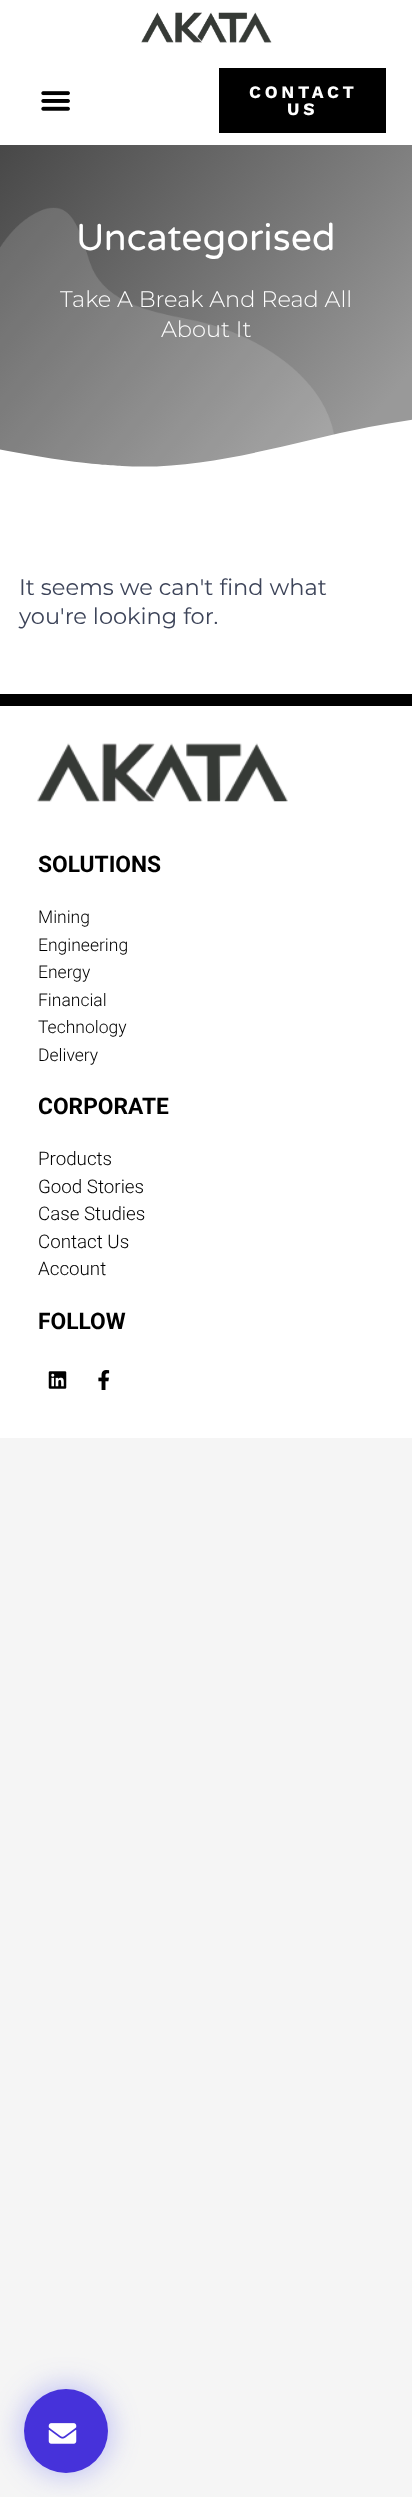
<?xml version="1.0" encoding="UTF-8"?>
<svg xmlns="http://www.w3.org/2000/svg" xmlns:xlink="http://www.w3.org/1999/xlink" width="412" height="2497">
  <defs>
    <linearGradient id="g1" gradientUnits="userSpaceOnUse" x1="-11" y1="89" x2="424" y2="454"><stop offset="0" stop-color="#404040" /><stop offset="0.89" stop-color="#999999" /></linearGradient>
  </defs>
  <rect width="100%" height="100%" fill="#f5f5f5" />
  <rect width="412" height="145" fill="#ffffff" />
  <image x="141" y="12" width="131" height="31" xlink:href="image1.png" />
  <image x="41" y="91" width="29" height="20" xlink:href="image2.png" />
  <rect x="219" y="68" width="167" height="65" fill="#000000" />
  <rect y="145" width="412" height="322" fill="url(#g1)" />
  <image x="0" y="207" width="334" height="260" xlink:href="image3.png" />
  <rect x="24" y="2389" width="84" height="84" rx="42" fill="#3538f0" fill-opacity="0.35" filter="blur(15.5px)" />
  <circle cx="66" cy="2431" r="42" fill="#4632da" />
  <image x="48" y="2423" width="29" height="21" xlink:href="image4.png" />
  <path d="M 122 466 c 85 5 165 -23 247 -39 c 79 -15 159 -22 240 -18 c 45 3 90 8 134 18 v 43 h -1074 v -19 c 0 0 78 -21 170 -19 c 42 0 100 4 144 14 c 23 5 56 11 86 15 c 29 4 42 4 53 5 z" fill="#ffffff" />
  <rect y="470" width="412" height="224" fill="#ffffff" />
  <rect y="694" width="412" height="12" fill="#000000" />
  <rect y="706" width="412" height="732" fill="#ffffff" />
  <image x="37" y="743" width="251" height="59" xlink:href="image5.png" />
  <image x="48" y="1371" width="19" height="18" xlink:href="image6.png" />
  <image x="98" y="1370" width="12" height="20" xlink:href="image7.png" />
  <text x="249" y="98" style="font-family: Work Sans; font-size: 17.5px; font-weight: bold; letter-spacing: 3.75px; fill: #ffffff">CONTACT</text>
  <text x="287" y="115" style="font-family: Work Sans; font-size: 17.5px; font-weight: bold; letter-spacing: 3.75px; fill: #ffffff">US</text>
  <text x="76" y="250" style="font-family: Varela Round; font-size: 37.5px; fill: #ffffff">Uncategorised</text>
  <text x="60" y="307" style="font-family: Montserrat; font-size: 22.5px; font-weight: 300; fill: #ffffff">Take A Break And Read All</text>
  <text x="161" y="337" style="font-family: Montserrat; font-size: 22.5px; font-weight: 300; fill: #ffffff">About It</text>
  <text x="19" y="595" style="font-family: Montserrat; font-size: 22.5px; fill: #3d4459">It seems we can't find what</text>
  <text x="19" y="624" style="font-family: Montserrat; font-size: 22.5px; fill: #3d4459">you're looking for.</text>
  <text x="38" y="872" style="font-family: Roboto; font-size: 22.75px; font-weight: bold; fill: #000000">SOLUTIONS</text>
  <text x="38" y="923" style="font-family: Roboto; font-size: 17.5px; font-weight: 300; fill: #000000">Mining</text>
  <text x="38" y="951" style="font-family: Roboto; font-size: 17.5px; font-weight: 300; fill: #000000">Engineering</text>
  <text x="38" y="978" style="font-family: Roboto; font-size: 17.5px; font-weight: 300; fill: #000000">Energy</text>
  <text x="38" y="1006" style="font-family: Roboto; font-size: 17.5px; font-weight: 300; fill: #000000">Financial</text>
  <text x="38" y="1033" style="font-family: Roboto; font-size: 17.5px; font-weight: 300; fill: #000000">Technology</text>
  <text x="38" y="1061" style="font-family: Roboto; font-size: 17.5px; font-weight: 300; fill: #000000">Delivery</text>
  <text x="38" y="1114" style="font-family: Roboto; font-size: 22.75px; font-weight: bold; fill: #000000">CORPORATE</text>
  <text x="38" y="1165" style="font-family: Roboto; font-size: 18.75px; font-weight: 300; fill: #000000">Products</text>
  <text x="38" y="1193" style="font-family: Roboto; font-size: 18.75px; font-weight: 300; fill: #000000">Good Stories</text>
  <text x="38" y="1220" style="font-family: Roboto; font-size: 18.75px; font-weight: 300; fill: #000000">Case Studies</text>
  <text x="38" y="1248" style="font-family: Roboto; font-size: 18.75px; font-weight: 300; fill: #000000">Contact Us</text>
  <text x="38" y="1275" style="font-family: Roboto; font-size: 18.75px; font-weight: 300; fill: #000000">Account</text>
  <text x="38" y="1329" style="font-family: Roboto; font-size: 22.75px; font-weight: bold; fill: #000000">FOLLOW</text>
</svg>
